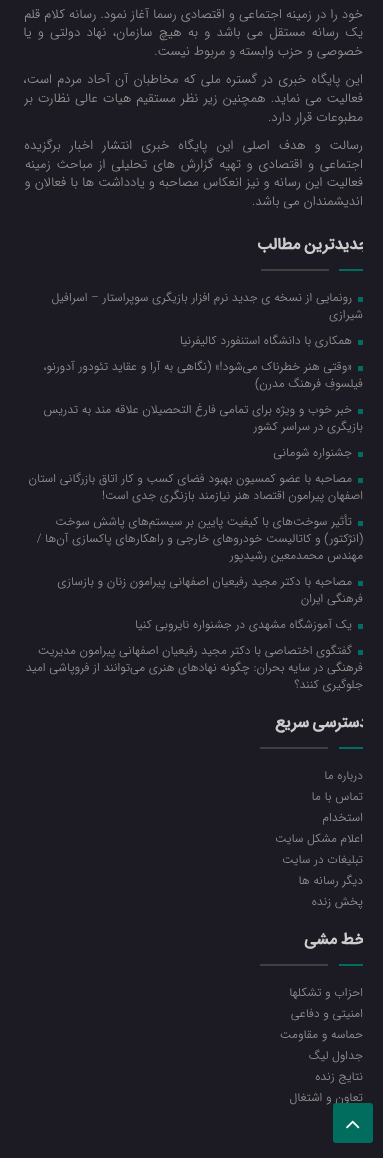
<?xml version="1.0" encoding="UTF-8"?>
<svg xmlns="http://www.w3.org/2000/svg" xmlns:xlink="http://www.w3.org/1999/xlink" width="383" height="1158">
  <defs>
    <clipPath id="clip1"><rect x="24" y="226" width="339" height="478" /></clipPath>
    <clipPath id="clip2"><rect x="20" y="704" width="343" height="217" /></clipPath>
    <clipPath id="clip3"><rect x="20" y="921" width="343" height="217" /></clipPath>
  </defs>
  <rect width="100%" height="100%" fill="#1c1b24" />
  <rect x="339" y="269" width="24" height="2" fill="#006d5f" />
  <rect x="261" y="269" width="68" height="2" fill="#404040" />
  <rect x="358" y="297" width="5" height="5" fill="#006d5f" />
  <rect x="358" y="340" width="5" height="5" fill="#006d5f" />
  <rect x="358" y="366" width="5" height="5" fill="#006d5f" />
  <rect x="358" y="409" width="5" height="5" fill="#006d5f" />
  <rect x="358" y="452" width="5" height="5" fill="#006d5f" />
  <rect x="358" y="478" width="5" height="5" fill="#006d5f" />
  <rect x="358" y="521" width="5" height="5" fill="#006d5f" />
  <rect x="358" y="581" width="5" height="5" fill="#006d5f" />
  <rect x="358" y="624" width="5" height="5" fill="#006d5f" />
  <rect x="358" y="650" width="5" height="5" fill="#006d5f" />
  <rect x="339" y="747" width="24" height="2" fill="#006d5f" />
  <rect x="260" y="747" width="68" height="2" fill="#404040" />
  <rect x="339" y="964" width="24" height="2" fill="#006d5f" />
  <rect x="260" y="964" width="68" height="2" fill="#404040" />
  <text x="363" y="18" word-spacing="0.1" style="font-family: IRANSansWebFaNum; font-size: 13px; font-weight: 300; direction: rtl; fill: #929292">خود را در زمینه اجتماعی و اقتصادی رسما آغاز نمود. رسانه کلام قلم</text>
  <text x="363" y="36" word-spacing="2.25" style="font-family: IRANSansWebFaNum; font-size: 13px; font-weight: 300; direction: rtl; fill: #929292">یک رسانه مستقل می باشد و به هیچ سازمان، نهاد دولتی و یا</text>
  <text x="363" y="55" style="font-family: IRANSansWebFaNum; font-size: 13px; font-weight: 300; direction: rtl; fill: #929292">خصوصی و حزب وابسته و مربوط نیست.</text>
  <text x="363" y="83" word-spacing="1.25" style="font-family: IRANSansWebFaNum; font-size: 13px; font-weight: 300; direction: rtl; fill: #929292">این پایگاه خبری در گستره ملی که مخاطبان آن آحاد مردم است،</text>
  <text x="363" y="102" word-spacing="1.1" style="font-family: IRANSansWebFaNum; font-size: 13px; font-weight: 300; direction: rtl; fill: #929292">فعالیت می نماید. همچنین زیر نظر مستقیم هیات عالی نظارت بر</text>
  <text x="363" y="121" style="font-family: IRANSansWebFaNum; font-size: 13px; font-weight: 300; direction: rtl; fill: #929292">مطبوعات قرار دارد.</text>
  <text x="363" y="149" word-spacing="5" style="font-family: IRANSansWebFaNum; font-size: 13px; font-weight: 300; direction: rtl; fill: #929292">رسالت و هدف اصلی این پایگاه خبری انتشار اخبار برگزیده</text>
  <text x="363" y="168" word-spacing="1.75" style="font-family: IRANSansWebFaNum; font-size: 13px; font-weight: 300; direction: rtl; fill: #929292">اجتماعی و اقتصادی و تهیه گزارش های تحلیلی از مباحث زمینه</text>
  <text x="363" y="186" word-spacing="0.1" style="font-family: IRANSansWebFaNum; font-size: 13px; font-weight: 300; direction: rtl; fill: #929292">فعالیت این رسانه و نیز انعکاس مصاحبه و یادداشت ها با فعالان و</text>
  <text x="363" y="205" style="font-family: IRANSansWebFaNum; font-size: 13px; font-weight: 300; direction: rtl; fill: #929292">اندیشمندان می باشد.</text>
  <g clip-path="url(#clip1)">
    <text x="369" y="249" word-spacing="-1" style="font-family: IRANSansWebFaNum; font-size: 16px; font-weight: bold; letter-spacing: 0.5px; direction: rtl; fill: #cccccc">جدیدترین مطالب</text>
  </g>
  <text x="352" y="301" style="font-family: IRANSansWebFaNum; font-size: 12px; font-weight: 300; direction: rtl; fill: #929292">رونمایی از نسخه ی جدید نرم افزار بازیگری سوپراستار – اسرافیل</text>
  <text x="363" y="318" style="font-family: IRANSansWebFaNum; font-size: 12px; font-weight: 300; direction: rtl; fill: #929292">شیرازی</text>
  <text x="352" y="344" style="font-family: IRANSansWebFaNum; font-size: 12px; font-weight: 300; direction: rtl; fill: #929292">همکاری با دانشگاه استنفورد کالیفرنیا</text>
  <text x="352" y="370" style="font-family: IRANSansWebFaNum; font-size: 12px; font-weight: 300; direction: rtl; fill: #929292">«وقتی هنر خطرناک می‌شود!» (نگاهی به آرا و عقاید تئودور آدورنو،</text>
  <text x="363" y="387" style="font-family: IRANSansWebFaNum; font-size: 12px; font-weight: 300; direction: rtl; fill: #929292">فیلسوفِ فرهنگ مدرن)</text>
  <text x="352" y="413" style="font-family: IRANSansWebFaNum; font-size: 12px; font-weight: 300; direction: rtl; fill: #929292">خبر خوب و ویژه برای تمامی فارغ التحصیلان علاقه مند به تدریس</text>
  <text x="363" y="430" style="font-family: IRANSansWebFaNum; font-size: 12px; font-weight: 300; direction: rtl; fill: #929292">بازیگری در سراسر کشور</text>
  <text x="352" y="456" style="font-family: IRANSansWebFaNum; font-size: 12px; font-weight: 300; direction: rtl; fill: #929292">جشنواره شومانی</text>
  <text x="352" y="482" style="font-family: IRANSansWebFaNum; font-size: 12px; font-weight: 300; direction: rtl; fill: #929292">مصاحبه با عضو کمسیون بهبود فضای کسب و کار اتاق بازرگانی استان</text>
  <text x="363" y="499" style="font-family: IRANSansWebFaNum; font-size: 12px; font-weight: 300; direction: rtl; fill: #929292">اصفهان پیرامون اقتصاد هنر نیازمند بازنگری جدی است!</text>
  <text x="352" y="525" style="font-family: IRANSansWebFaNum; font-size: 12px; font-weight: 300; direction: rtl; fill: #929292">تأثیر سوخت‌های با کیفیت پایین بر سیستم‌های پاشش سوخت</text>
  <text x="363" y="542" style="font-family: IRANSansWebFaNum; font-size: 12px; font-weight: 300; direction: rtl; fill: #929292">(انژکتور) و کاتالیست خودروهای خارجی و راهکارهای پاکسازی آن‌ها /</text>
  <text x="363" y="559" style="font-family: IRANSansWebFaNum; font-size: 12px; font-weight: 300; direction: rtl; fill: #929292">مهندس محمدمعین رشیدپور</text>
  <text x="352" y="585" style="font-family: IRANSansWebFaNum; font-size: 12px; font-weight: 300; direction: rtl; fill: #929292">مصاحبه با دکتر مجید رفیعیان اصفهانی پیرامون زنان و بازسازی</text>
  <text x="363" y="602" style="font-family: IRANSansWebFaNum; font-size: 12px; font-weight: 300; direction: rtl; fill: #929292">فرهنگی ایران</text>
  <text x="352" y="628" style="font-family: IRANSansWebFaNum; font-size: 12px; font-weight: 300; direction: rtl; fill: #929292">یک آموزشگاه مشهدی در جشنواره نایروبی کنیا</text>
  <text x="352" y="654" style="font-family: IRANSansWebFaNum; font-size: 12px; font-weight: 300; direction: rtl; fill: #929292">گفتگوی اختصاصی با دکتر مجید رفیعیان اصفهانی پیرامون مدیریت</text>
  <text x="363" y="671" style="font-family: IRANSansWebFaNum; font-size: 12px; font-weight: 300; direction: rtl; fill: #929292">فرهنگی در سایه بحران: چگونه نهادهای هنری می‌توانند از فروپاشی امید</text>
  <text x="363" y="688" style="font-family: IRANSansWebFaNum; font-size: 12px; font-weight: 300; direction: rtl; fill: #929292">جلوگیری کنند؟</text>
  <g clip-path="url(#clip2)">
    <text x="367" y="727" word-spacing="-1" style="font-family: IRANSansWebFaNum; font-size: 16px; font-weight: bold; letter-spacing: 0.5px; direction: rtl; fill: #cccccc">دسترسی سریع</text>
  </g>
  <text x="363" y="779" style="font-family: IRANSansWebFaNum; font-size: 12px; font-weight: 300; direction: rtl; fill: #929292">درباره ما</text>
  <text x="363" y="800" style="font-family: IRANSansWebFaNum; font-size: 12px; font-weight: 300; direction: rtl; fill: #929292">تماس با ما</text>
  <text x="363" y="821" style="font-family: IRANSansWebFaNum; font-size: 12px; font-weight: 300; direction: rtl; fill: #929292">استخدام</text>
  <text x="363" y="842" style="font-family: IRANSansWebFaNum; font-size: 12px; font-weight: 300; direction: rtl; fill: #929292">اعلام مشکل سایت</text>
  <text x="363" y="863" style="font-family: IRANSansWebFaNum; font-size: 12px; font-weight: 300; direction: rtl; fill: #929292">تبلیغات در سایت</text>
  <text x="363" y="884" style="font-family: IRANSansWebFaNum; font-size: 12px; font-weight: 300; direction: rtl; fill: #929292">دیگر رسانه ها</text>
  <text x="363" y="905" style="font-family: IRANSansWebFaNum; font-size: 12px; font-weight: 300; direction: rtl; fill: #929292">پخش زنده</text>
  <g clip-path="url(#clip3)">
    <text x="365" y="944" word-spacing="-1" style="font-family: IRANSansWebFaNum; font-size: 16px; font-weight: bold; letter-spacing: 0.5px; direction: rtl; fill: #cccccc">خط مشی</text>
  </g>
  <text x="363" y="996" style="font-family: IRANSansWebFaNum; font-size: 12px; font-weight: 300; direction: rtl; fill: #929292">احزاب و تشکلها</text>
  <text x="363" y="1017" style="font-family: IRANSansWebFaNum; font-size: 12px; font-weight: 300; direction: rtl; fill: #929292">امنیتی و دفاعی</text>
  <text x="363" y="1038" style="font-family: IRANSansWebFaNum; font-size: 12px; font-weight: 300; direction: rtl; fill: #929292">حماسه و مقاومت</text>
  <text x="363" y="1059" style="font-family: IRANSansWebFaNum; font-size: 12px; font-weight: 300; direction: rtl; fill: #929292">جداول لیگ</text>
  <text x="363" y="1080" style="font-family: IRANSansWebFaNum; font-size: 12px; font-weight: 300; direction: rtl; fill: #929292">نتایج زنده</text>
  <text x="363" y="1101" style="font-family: IRANSansWebFaNum; font-size: 12px; font-weight: 300; direction: rtl; fill: #929292">تعاون و اشتغال</text>
  <rect x="333" y="1103" width="40" height="40" rx="3" fill="#006d5f" />
  <image x="346" y="1120" width="14" height="9" xlink:href="image1.png" />
</svg>
